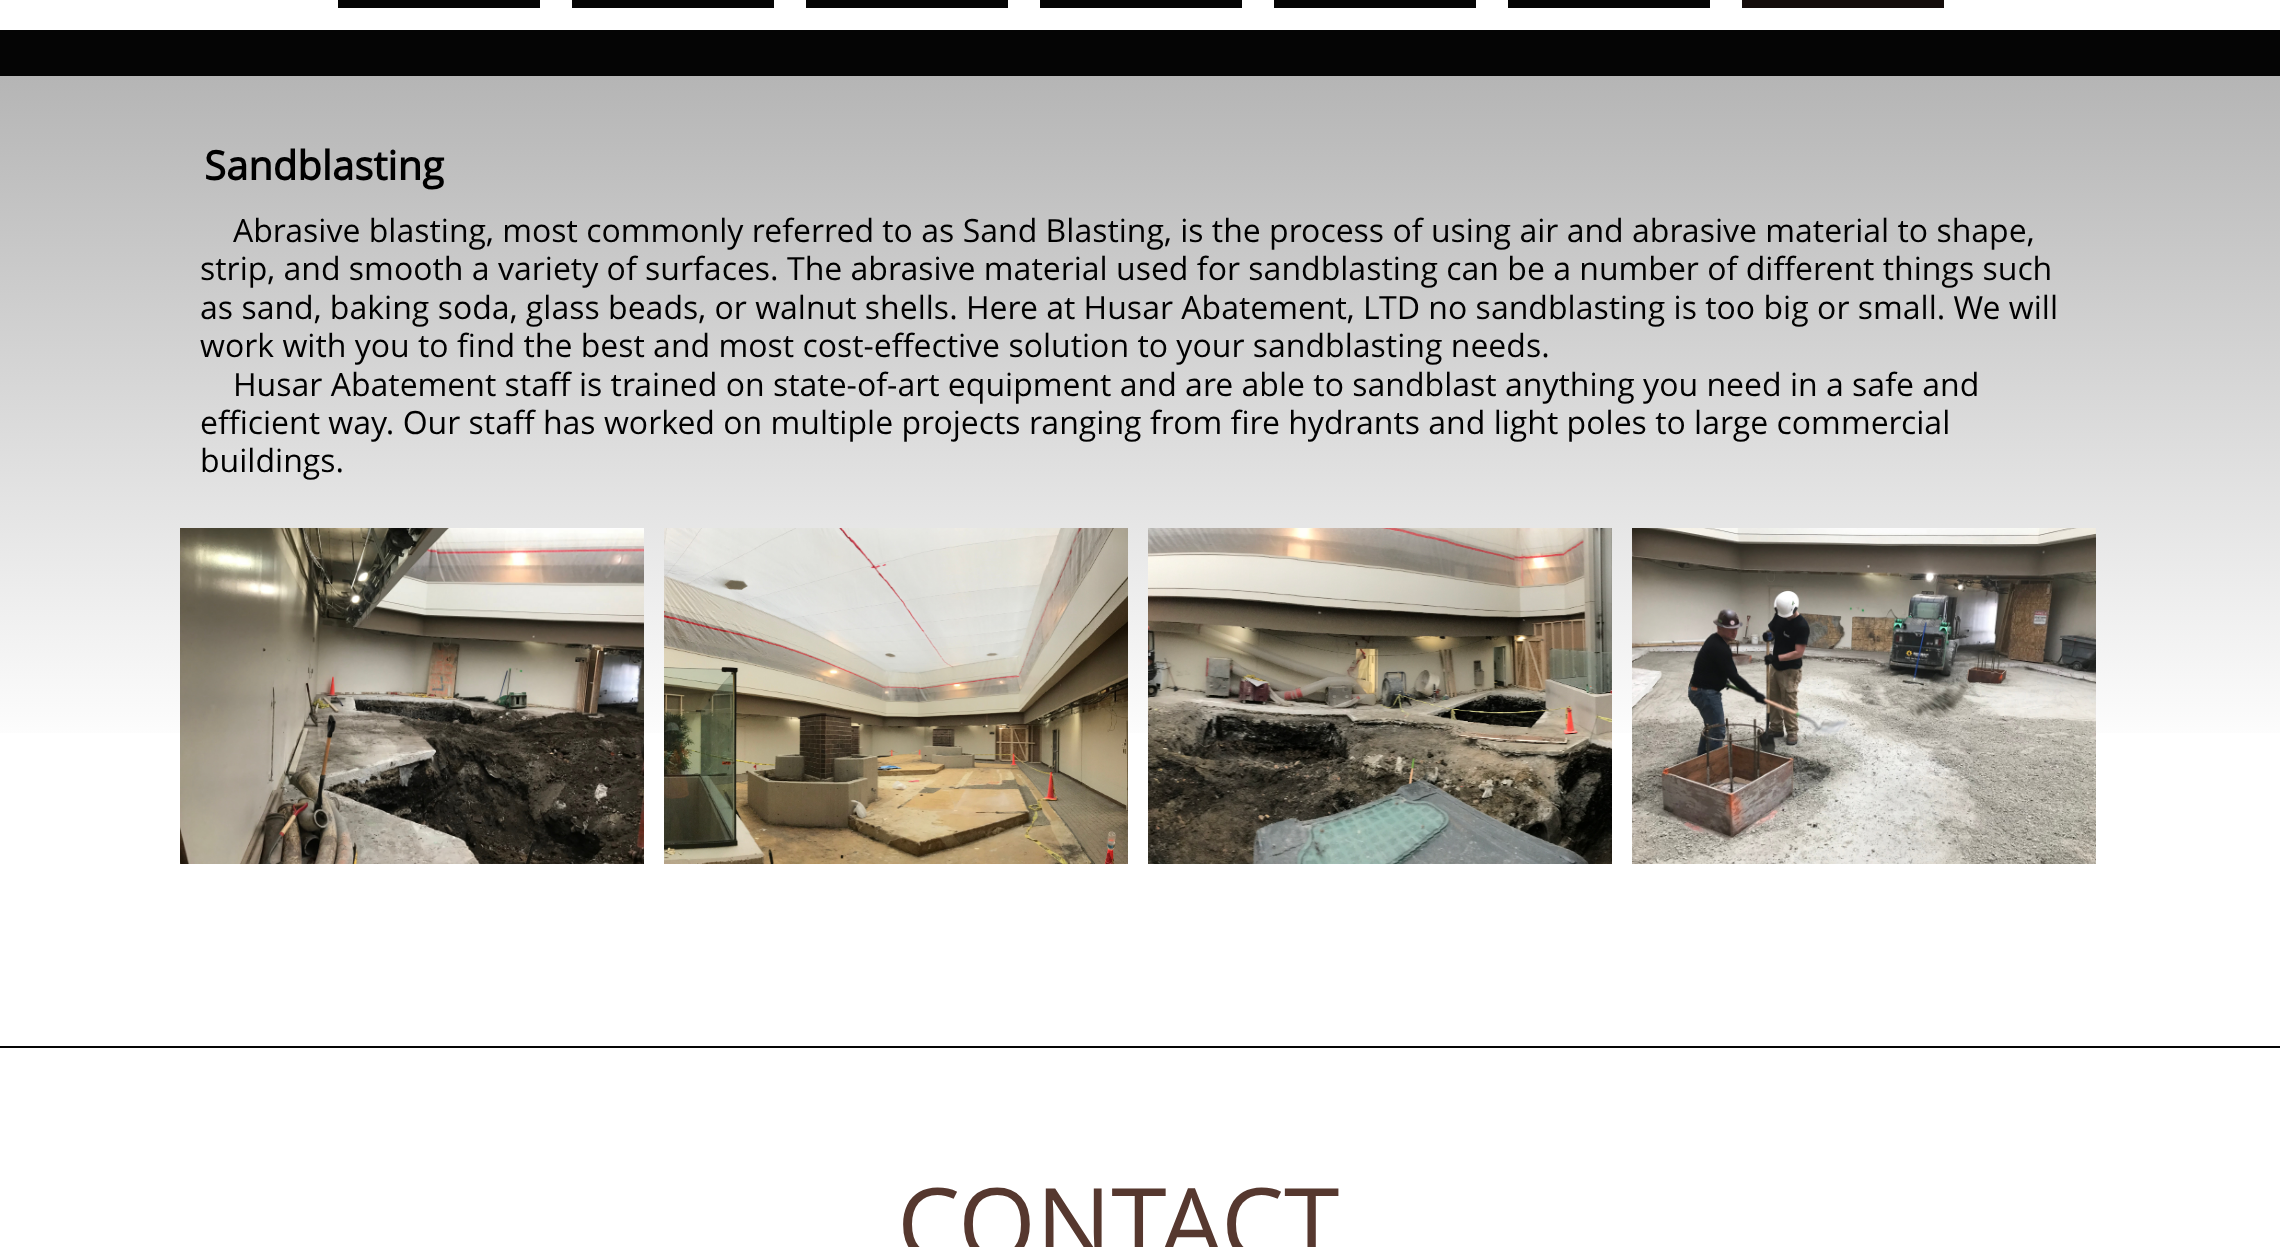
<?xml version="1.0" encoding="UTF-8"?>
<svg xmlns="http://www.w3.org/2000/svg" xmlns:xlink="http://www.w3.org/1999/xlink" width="2280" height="1247">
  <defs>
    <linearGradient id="g1" gradientUnits="userSpaceOnUse" x1="1140" y1="76" x2="1140" y2="1106"><stop offset="0" stop-color="#b5b5b5" /><stop offset="0.66" stop-color="#ffffff" /><stop offset="1" stop-color="#ffffff" /></linearGradient>
  </defs>
  <rect width="100%" height="100%" fill="#ffffff" />
  <rect x="338" width="202" height="8" fill="#050505" />
  <rect x="572" width="202" height="8" fill="#050505" />
  <rect x="806" width="202" height="8" fill="#050505" />
  <rect x="1040" width="202" height="8" fill="#050505" />
  <rect x="1274" width="202" height="8" fill="#050505" />
  <rect x="1508" width="202" height="8" fill="#050505" />
  <rect x="1742" width="202" height="8" fill="#140d0b" />
  <rect y="30" width="2280" height="46" fill="#050505" />
  <rect y="76" width="2280" height="657" fill="url(#g1)" />
  <image x="180" y="528" width="464" height="336" xlink:href="image1.png" />
  <image x="664" y="528" width="464" height="336" xlink:href="image2.png" />
  <image x="1148" y="528" width="464" height="336" xlink:href="image3.png" />
  <image x="1632" y="528" width="464" height="336" xlink:href="image4.png" />
  <rect y="1046" width="2280" height="2" fill="#050505" />
  <text x="204" y="180" style="font-family: Open Sans; font-size: 40px; font-weight: bold; fill: #000000">Sandblasting</text>
  <text x="233" y="242" style="font-family: Open Sans; font-size: 32px; fill: #000000">Abrasive blasting, most commonly referred to as Sand Blasting, is the process of using air and abrasive material to shape,</text>
  <text x="200" y="280" style="font-family: Open Sans; font-size: 32px; fill: #000000">strip, and smooth a variety of surfaces. The abrasive material used for sandblasting can be a number of different things such</text>
  <text x="200" y="319" style="font-family: Open Sans; font-size: 32px; fill: #000000">as sand, baking soda, glass beads, or walnut shells. Here at Husar Abatement, LTD no sandblasting is too big or small. We will</text>
  <text x="200" y="357" style="font-family: Open Sans; font-size: 32px; fill: #000000">work with you to find the best and most cost-effective solution to your sandblasting needs.</text>
  <text x="233" y="396" style="font-family: Open Sans; font-size: 32px; fill: #000000">Husar Abatement staff is trained on state-of-art equipment and are able to sandblast anything you need in a safe and</text>
  <text x="200" y="434" style="font-family: Open Sans; font-size: 32px; fill: #000000">efficient way. Our staff has worked on multiple projects ranging from fire hydrants and light poles to large commercial</text>
  <text x="200" y="472" style="font-family: Open Sans; font-size: 32px; fill: #000000">buildings.</text>
  <text x="897" y="1260" style="font-family: Open Sans; font-size: 100px; fill: #56382f">CONTACT</text>
</svg>
